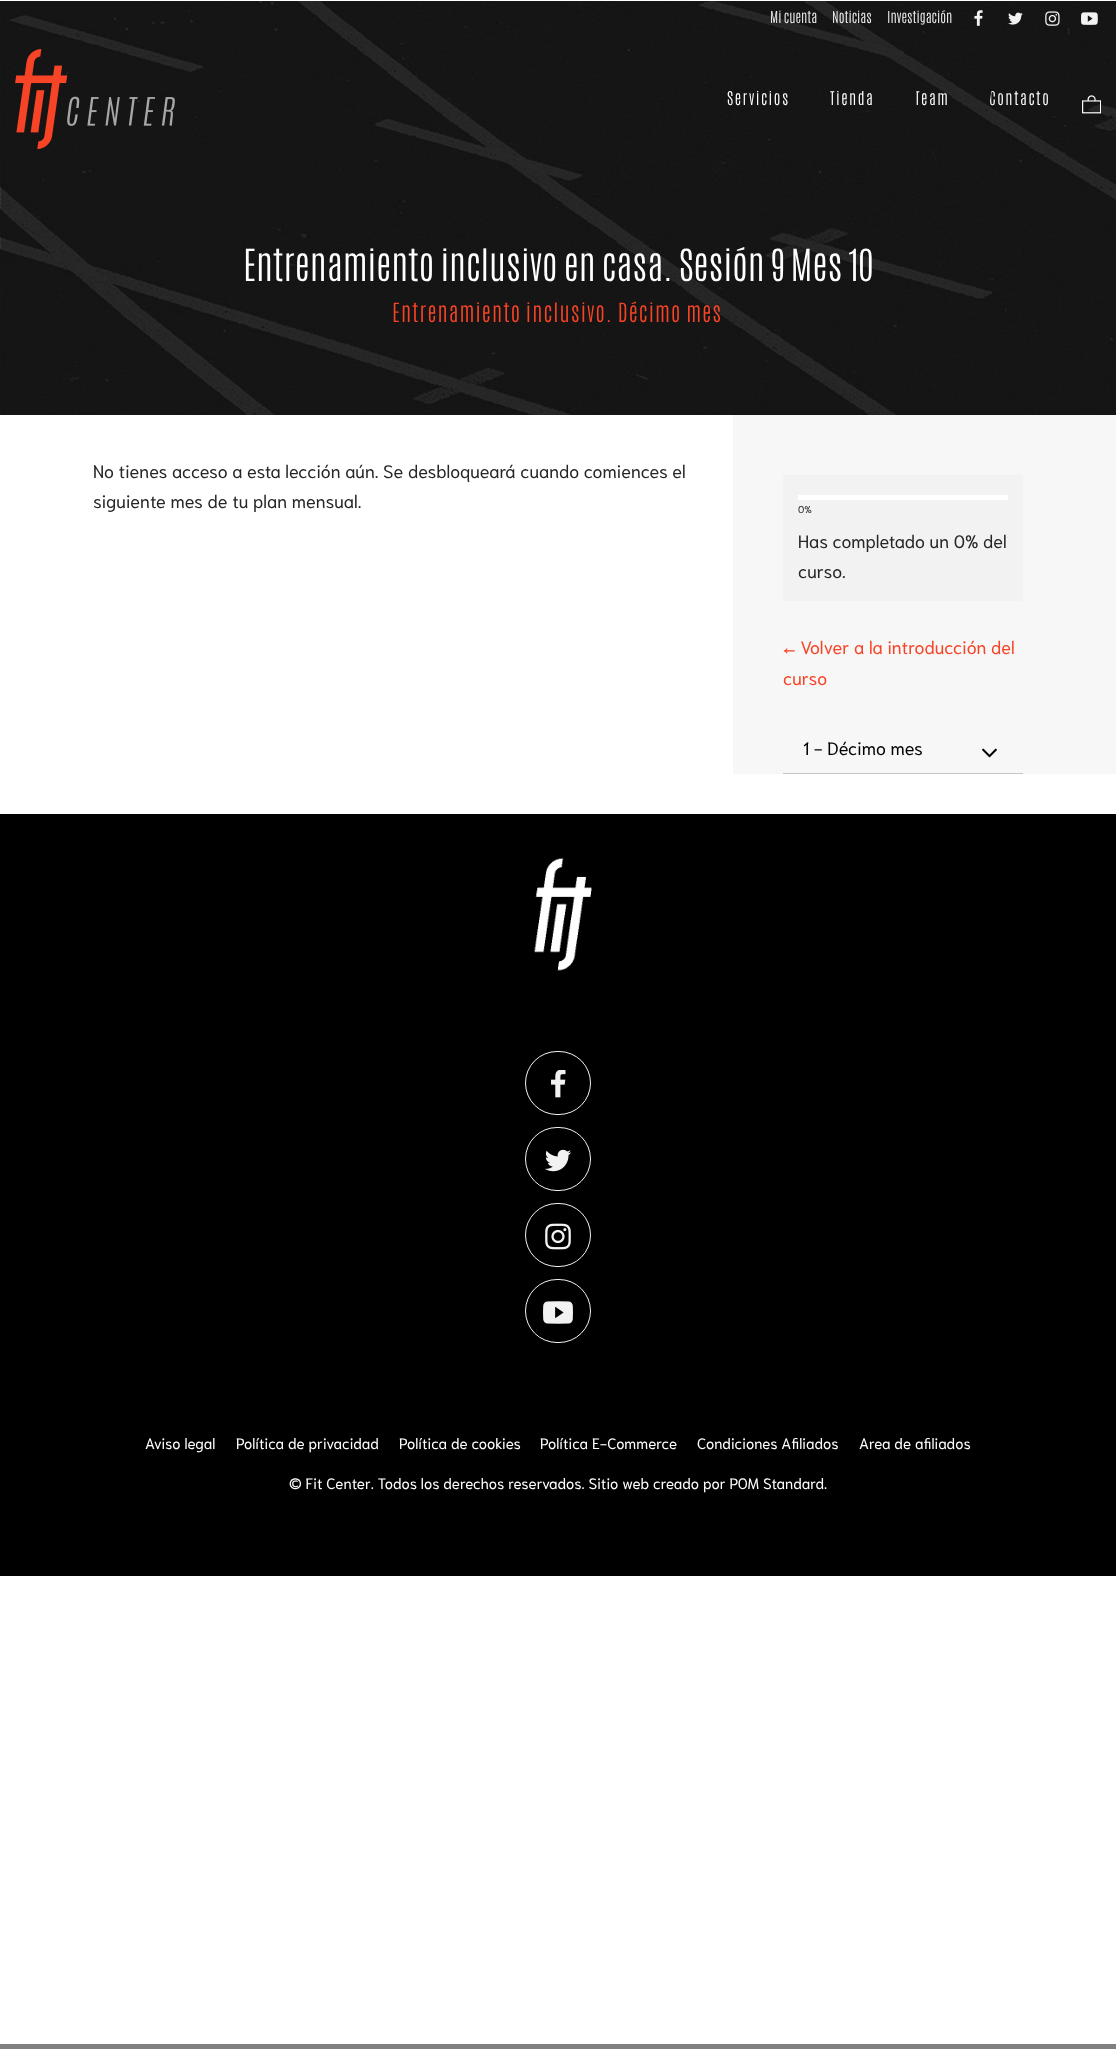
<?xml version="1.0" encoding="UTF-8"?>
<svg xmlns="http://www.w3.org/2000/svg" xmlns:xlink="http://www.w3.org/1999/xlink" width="1116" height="2049">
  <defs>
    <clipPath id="clip1"><path d="M 917 87 h 35 l -3.5 24 h -35 z" /></clipPath>
    <clipPath id="clip2"><path d="M 992 87 h 62 l -3.5 24 h -62 z" /></clipPath>
  </defs>
  <rect width="100%" height="100%" fill="#ffffff" />
  <image x="0" y="1" width="1116" height="414" xlink:href="image7.png" />
  <image x="974" y="10" width="9" height="16" xlink:href="image1.png" />
  <image x="1008" y="12" width="15" height="13" xlink:href="image2.png" />
  <image x="1045" y="11" width="15" height="15" xlink:href="image3.png" />
  <image x="1081" y="12" width="17" height="13" xlink:href="image4.png" />
  <image x="15" y="49" width="160" height="100" xlink:href="image5.png" />
  <image x="1082" y="95" width="19" height="19" xlink:href="image6.png" />
  <rect x="733" y="415" width="383" height="359" fill="#f7f7f7" />
  <rect x="783" y="475" width="240" height="126" fill="#f2f2f2" />
  <rect x="798" y="495" width="210" height="5" fill="#ffffff" />
  <image x="982" y="748" width="15" height="10" xlink:href="image8.png" />
  <rect x="783" y="773" width="240" height="1" fill="#c6c6c6" />
  <rect y="814" width="1116" height="762" fill="#000000" />
  <image x="534" y="857" width="58" height="114" xlink:href="image9.png" />
  <rect x="525.5" y="1051.5" width="65" height="63" rx="31.5" fill="none" stroke="#f2f2f2" />
  <image x="551" y="1070" width="15" height="28" xlink:href="image10.png" />
  <rect x="525.5" y="1127.5" width="65" height="63" rx="31.5" fill="none" stroke="#f2f2f2" />
  <image x="545" y="1149" width="26" height="23" xlink:href="image11.png" />
  <rect x="525.5" y="1203.5" width="65" height="63" rx="31.5" fill="none" stroke="#f2f2f2" />
  <image x="545" y="1223" width="26" height="27" xlink:href="image12.png" />
  <rect x="525.5" y="1279.5" width="65" height="63" rx="31.5" fill="none" stroke="#f2f2f2" />
  <image x="543" y="1301" width="30" height="23" xlink:href="image13.png" />
  <rect y="2044" width="1116" height="5" fill="#808080" />
  <text x="770" y="23" style="font-family: Antonio; font-size: 14px; font-weight: 300; fill: #f2f2f2">Mi cuenta</text>
  <text x="832" y="23" style="font-family: Antonio; font-size: 14px; font-weight: 300; fill: #f2f2f2">Noticias</text>
  <text x="887" y="23" style="font-family: Antonio; font-size: 14px; font-weight: 300; fill: #f2f2f2">Investigación</text>
  <text x="727" y="105" style="font-family: Antonio; font-size: 16px; font-weight: 300; letter-spacing: 1.5px; fill: #ffffff">Servicios</text>
  <text x="830" y="105" style="font-family: Antonio; font-size: 16px; font-weight: 300; letter-spacing: 1.5px; fill: #ffffff">Tienda</text>
  <g clip-path="url(#clip1)">
    <text x="915" y="105" style="font-family: Antonio; font-size: 16px; font-weight: 300; letter-spacing: 1.5px; fill: #ffffff">Team</text>
  </g>
  <g clip-path="url(#clip2)">
    <text x="989" y="105" style="font-family: Antonio; font-size: 16px; font-weight: 300; letter-spacing: 1.5px; fill: #ffffff">Contacto</text>
  </g>
  <text x="243" y="281" style="font-family: Antonio; font-size: 37.5px; font-weight: 300; fill: #ffffff">Entrenamiento inclusivo en casa. Sesión 9 Mes 10</text>
  <text x="392" y="322" style="font-family: Antonio; font-size: 22.5px; font-weight: 300; letter-spacing: 1.1px; fill: #f74326">Entrenamiento inclusivo. Décimo mes</text>
  <text x="93" y="478" style="font-family: Niramit; font-size: 18px; fill: #262626">No tienes acceso a esta lección aún. Se desbloqueará cuando comiences el</text>
  <text x="93" y="508" style="font-family: Niramit; font-size: 18px; fill: #262626">siguiente mes de tu plan mensual.</text>
  <text x="798" y="513" style="font-family: Niramit; font-size: 10px; fill: #262626">0%</text>
  <text x="798" y="548" style="font-family: Niramit; font-size: 18px; fill: #262626">Has completado un 0% del</text>
  <text x="798" y="578" style="font-family: Niramit; font-size: 18px; fill: #262626">curso.</text>
  <text x="783" y="654" style="font-family: Niramit; font-size: 18px; fill: #f74326">← Volver a la introducción del</text>
  <text x="783" y="685" style="font-family: Niramit; font-size: 18px; fill: #f74326">curso</text>
  <text x="803" y="755" style="font-family: Niramit; font-size: 18px; fill: #000000">1 - Décimo mes</text>
  <text x="145" y="1449" style="font-family: Niramit; font-size: 15px; fill: #ffffff">Aviso legal</text>
  <text x="236" y="1449" style="font-family: Niramit; font-size: 15px; fill: #ffffff">Política de privacidad</text>
  <text x="399" y="1449" style="font-family: Niramit; font-size: 15px; fill: #ffffff">Política de cookies</text>
  <text x="540" y="1449" style="font-family: Niramit; font-size: 15px; fill: #ffffff">Política E-Commerce</text>
  <text x="697" y="1449" style="font-family: Niramit; font-size: 15px; fill: #ffffff">Condiciones Afiliados</text>
  <text x="859" y="1449" style="font-family: Niramit; font-size: 15px; fill: #ffffff">Area de afiliados</text>
  <text x="289" y="1489" style="font-family: Niramit; font-size: 15px; fill: #ffffff">© Fit Center. Todos los derechos reservados. Sitio web creado por POM Standard.</text>
</svg>
